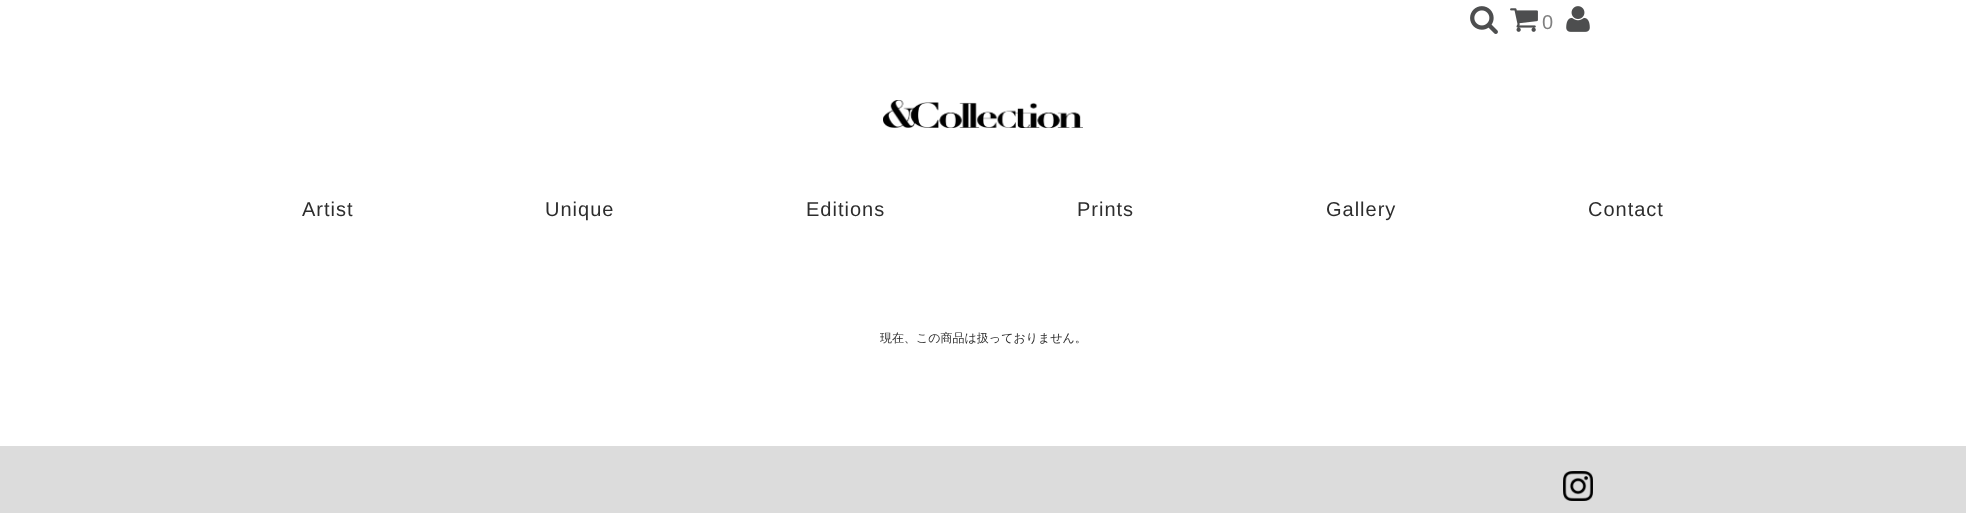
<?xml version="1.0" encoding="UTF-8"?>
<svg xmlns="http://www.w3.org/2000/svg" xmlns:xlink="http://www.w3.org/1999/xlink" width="1966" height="513">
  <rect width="100%" height="100%" fill="#ffffff" />
  <image x="1470" y="6" width="28" height="28" xlink:href="image1.png" />
  <image x="1510" y="8" width="28" height="24" xlink:href="image2.png" />
  <image x="1566" y="6" width="24" height="26" xlink:href="image3.png" />
  <image x="883" y="100" width="200" height="28" xlink:href="image4.png" />
  <rect y="446" width="1966" height="67" fill="#dcdcdc" />
  <image x="1563" y="471" width="30" height="30" xlink:href="image5.png" />
  <text x="1542" y="29" style="font-family: Liberation Sans; font-size: 20px; fill: #808080">0</text>
  <text x="302" y="216" style="font-family: Liberation Sans; font-size: 20px; letter-spacing: 1px; fill: #2d2d2d">Artist</text>
  <text x="545" y="216" style="font-family: Liberation Sans; font-size: 20px; letter-spacing: 1px; fill: #2d2d2d">Unique</text>
  <text x="806" y="216" style="font-family: Liberation Sans; font-size: 20px; letter-spacing: 1px; fill: #2d2d2d">Editions</text>
  <text x="1077" y="216" style="font-family: Liberation Sans; font-size: 20px; letter-spacing: 1px; fill: #2d2d2d">Prints</text>
  <text x="1326" y="216" style="font-family: Liberation Sans; font-size: 20px; letter-spacing: 1px; fill: #2d2d2d">Gallery</text>
  <text x="1588" y="216" style="font-family: Liberation Sans; font-size: 20px; letter-spacing: 1px; fill: #2d2d2d">Contact</text>
  <text x="880" y="342" style="font-family: WenQuanYi Zen Hei; font-size: 12px; font-weight: 500; fill: #2d2d2d">現在、この商品は扱っておりません。</text>
</svg>
